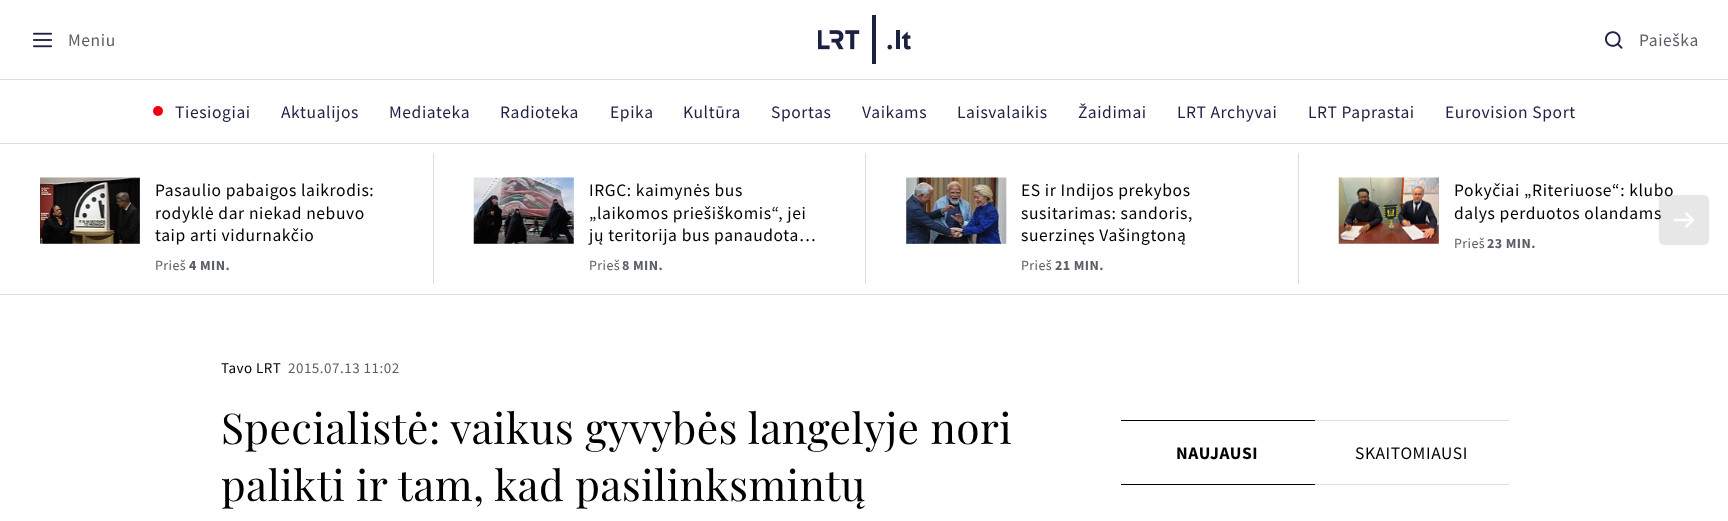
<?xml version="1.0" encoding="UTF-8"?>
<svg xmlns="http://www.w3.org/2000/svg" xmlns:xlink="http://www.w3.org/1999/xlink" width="1728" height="521">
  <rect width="100%" height="100%" fill="#ffffff" />
  <rect y="79" width="1728" height="1" fill="#dadee5" />
  <image x="33" y="32" width="19" height="16" xlink:href="image1.png" />
  <image x="818" y="15" width="93" height="49" xlink:href="image2.png" />
  <image x="1605" y="31" width="18" height="18" xlink:href="image3.png" />
  <rect y="143" width="1728" height="1" fill="#dadee5" />
  <circle cx="158" cy="111" r="5" fill="#ee000e" />
  <rect y="294" width="1728" height="1" fill="#dadee5" />
  <rect x="40" y="178" width="100" height="66" fill="#e0e3e9" />
  <image x="40" y="177" width="100" height="67" xlink:href="image4.png" />
  <rect x="433" y="153" width="1" height="131" fill="#dadee5" />
  <rect x="474" y="178" width="100" height="66" fill="#e0e3e9" />
  <image x="473" y="177" width="101" height="67" xlink:href="image5.png" />
  <rect x="865" y="153" width="1" height="131" fill="#dadee5" />
  <rect x="906" y="178" width="100" height="66" fill="#e0e3e9" />
  <image x="906" y="177" width="101" height="67" xlink:href="image6.png" />
  <rect x="1298" y="153" width="1" height="131" fill="#dadee5" />
  <rect x="1339" y="178" width="100" height="66" fill="#e0e3e9" />
  <image x="1338" y="177" width="101" height="67" xlink:href="image7.png" />
  <rect x="1121" y="420" width="194" height="1" fill="#000000" />
  <rect x="1121" y="484" width="194" height="1" fill="#000000" />
  <rect x="1315" y="420" width="194" height="1" fill="#dadee5" />
  <rect x="1315" y="484" width="194" height="1" fill="#dadee5" />
  <text x="68" y="46" style="font-family: Source Sans Pro; font-size: 17.5px; letter-spacing: 0.6px; fill: #5b5f66">Meniu</text>
  <text x="1639" y="46" style="font-family: Source Sans Pro; font-size: 17.5px; letter-spacing: 0.6px; fill: #5b5f66">Paieška</text>
  <text x="175" y="118" style="font-family: Source Sans Pro; font-size: 17.5px; letter-spacing: 0.6px; fill: #1d2142">Tiesiogiai</text>
  <text x="281" y="118" style="font-family: Source Sans Pro; font-size: 17.5px; letter-spacing: 0.6px; fill: #1d2142">Aktualijos</text>
  <text x="389" y="118" style="font-family: Source Sans Pro; font-size: 17.5px; letter-spacing: 0.6px; fill: #1d2142">Mediateka</text>
  <text x="500" y="118" style="font-family: Source Sans Pro; font-size: 17.5px; letter-spacing: 0.6px; fill: #1d2142">Radioteka</text>
  <text x="610" y="118" style="font-family: Source Sans Pro; font-size: 17.5px; letter-spacing: 0.6px; fill: #1d2142">Epika</text>
  <text x="683" y="118" style="font-family: Source Sans Pro; font-size: 17.5px; letter-spacing: 0.6px; fill: #1d2142">Kultūra</text>
  <text x="771" y="118" style="font-family: Source Sans Pro; font-size: 17.5px; letter-spacing: 0.6px; fill: #1d2142">Sportas</text>
  <text x="862" y="118" style="font-family: Source Sans Pro; font-size: 17.5px; letter-spacing: 0.6px; fill: #1d2142">Vaikams</text>
  <text x="957" y="118" style="font-family: Source Sans Pro; font-size: 17.5px; letter-spacing: 0.6px; fill: #1d2142">Laisvalaikis</text>
  <text x="1078" y="118" style="font-family: Source Sans Pro; font-size: 17.5px; letter-spacing: 0.6px; fill: #1d2142">Žaidimai</text>
  <text x="1177" y="118" style="font-family: Source Sans Pro; font-size: 17.5px; letter-spacing: 0.6px; fill: #1d2142">LRT Archyvai</text>
  <text x="1308" y="118" style="font-family: Source Sans Pro; font-size: 17.5px; letter-spacing: 0.6px; fill: #1d2142">LRT Paprastai</text>
  <text x="1445" y="118" style="font-family: Source Sans Pro; font-size: 17.5px; letter-spacing: 0.6px; fill: #1d2142">Eurovision Sport</text>
  <text x="155" y="196" style="font-family: Source Sans Pro; font-size: 17.5px; letter-spacing: 0.6px; fill: #000000">Pasaulio pabaigos laikrodis:</text>
  <text x="155" y="219" style="font-family: Source Sans Pro; font-size: 17.5px; letter-spacing: 0.6px; fill: #000000">rodyklė dar niekad nebuvo</text>
  <text x="155" y="241" style="font-family: Source Sans Pro; font-size: 17.5px; letter-spacing: 0.6px; fill: #000000">taip arti vidurnakčio</text>
  <text x="155" y="270" style="font-family: Source Sans Pro; font-size: 14px; letter-spacing: 0.4px; fill: #5b5f66">Prieš</text>
  <text x="189" y="270" style="font-family: Source Sans Pro; font-size: 14px; font-weight: bold; letter-spacing: 0.4px; fill: #5b5f66">4 MIN.</text>
  <text x="589" y="196" style="font-family: Source Sans Pro; font-size: 17.5px; letter-spacing: 0.6px; fill: #000000">IRGC: kaimynės bus</text>
  <text x="589" y="219" style="font-family: Source Sans Pro; font-size: 17.5px; letter-spacing: 0.6px; fill: #000000">„laikomos priešiškomis“, jei</text>
  <text x="589" y="241" style="font-family: Source Sans Pro; font-size: 17.5px; letter-spacing: 0.6px; fill: #000000">jų teritorija bus panaudota…</text>
  <text x="589" y="270" style="font-family: Source Sans Pro; font-size: 14px; letter-spacing: 0.4px; fill: #5b5f66">Prieš</text>
  <text x="622" y="270" style="font-family: Source Sans Pro; font-size: 14px; font-weight: bold; letter-spacing: 0.4px; fill: #5b5f66">8 MIN.</text>
  <text x="1021" y="196" style="font-family: Source Sans Pro; font-size: 17.5px; letter-spacing: 0.6px; fill: #000000">ES ir Indijos prekybos</text>
  <text x="1021" y="219" style="font-family: Source Sans Pro; font-size: 17.5px; letter-spacing: 0.6px; fill: #000000">susitarimas: sandoris,</text>
  <text x="1021" y="241" style="font-family: Source Sans Pro; font-size: 17.5px; letter-spacing: 0.6px; fill: #000000">suerzinęs Vašingtoną</text>
  <text x="1021" y="270" style="font-family: Source Sans Pro; font-size: 14px; letter-spacing: 0.4px; fill: #5b5f66">Prieš</text>
  <text x="1055" y="270" style="font-family: Source Sans Pro; font-size: 14px; font-weight: bold; letter-spacing: 0.4px; fill: #5b5f66">21 MIN.</text>
  <text x="1454" y="196" style="font-family: Source Sans Pro; font-size: 17.5px; letter-spacing: 0.6px; fill: #000000">Pokyčiai „Riteriuose“: klubo</text>
  <text x="1454" y="219" style="font-family: Source Sans Pro; font-size: 17.5px; letter-spacing: 0.6px; fill: #000000">dalys perduotos olandams</text>
  <text x="1454" y="248" style="font-family: Source Sans Pro; font-size: 14px; letter-spacing: 0.4px; fill: #5b5f66">Prieš</text>
  <text x="1487" y="248" style="font-family: Source Sans Pro; font-size: 14px; font-weight: bold; letter-spacing: 0.4px; fill: #5b5f66">23 MIN.</text>
  <rect x="1659" y="195" width="50" height="50" rx="5" fill="#5b5f66" fill-opacity="0.15" />
  <image x="1673" y="212" width="21" height="16" xlink:href="image8.png" />
  <text x="221" y="373" style="font-family: Source Sans Pro; font-size: 15px; letter-spacing: 0.5px; fill: #000000">Tavo LRT</text>
  <text x="288" y="373" style="font-family: Source Sans Pro; font-size: 15px; letter-spacing: 0.5px; fill: #5b5f66">2015.07.13 11:02</text>
  <text x="221" y="444" style="font-family: Playfair Display; font-size: 42.5px; letter-spacing: 0.4px; fill: #000000">Specialistė: vaikus gyvybės langelyje nori</text>
  <text x="221" y="501" style="font-family: Playfair Display; font-size: 42.5px; letter-spacing: 0.4px; fill: #000000">palikti ir tam, kad pasilinksmintų</text>
  <text x="1176" y="459" style="font-family: Source Sans Pro; font-size: 17.5px; font-weight: bold; letter-spacing: 0.6px; fill: #000000">NAUJAUSI</text>
  <text x="1355" y="459" style="font-family: Source Sans Pro; font-size: 17.5px; letter-spacing: 0.6px; fill: #000000">SKAITOMIAUSI</text>
</svg>
